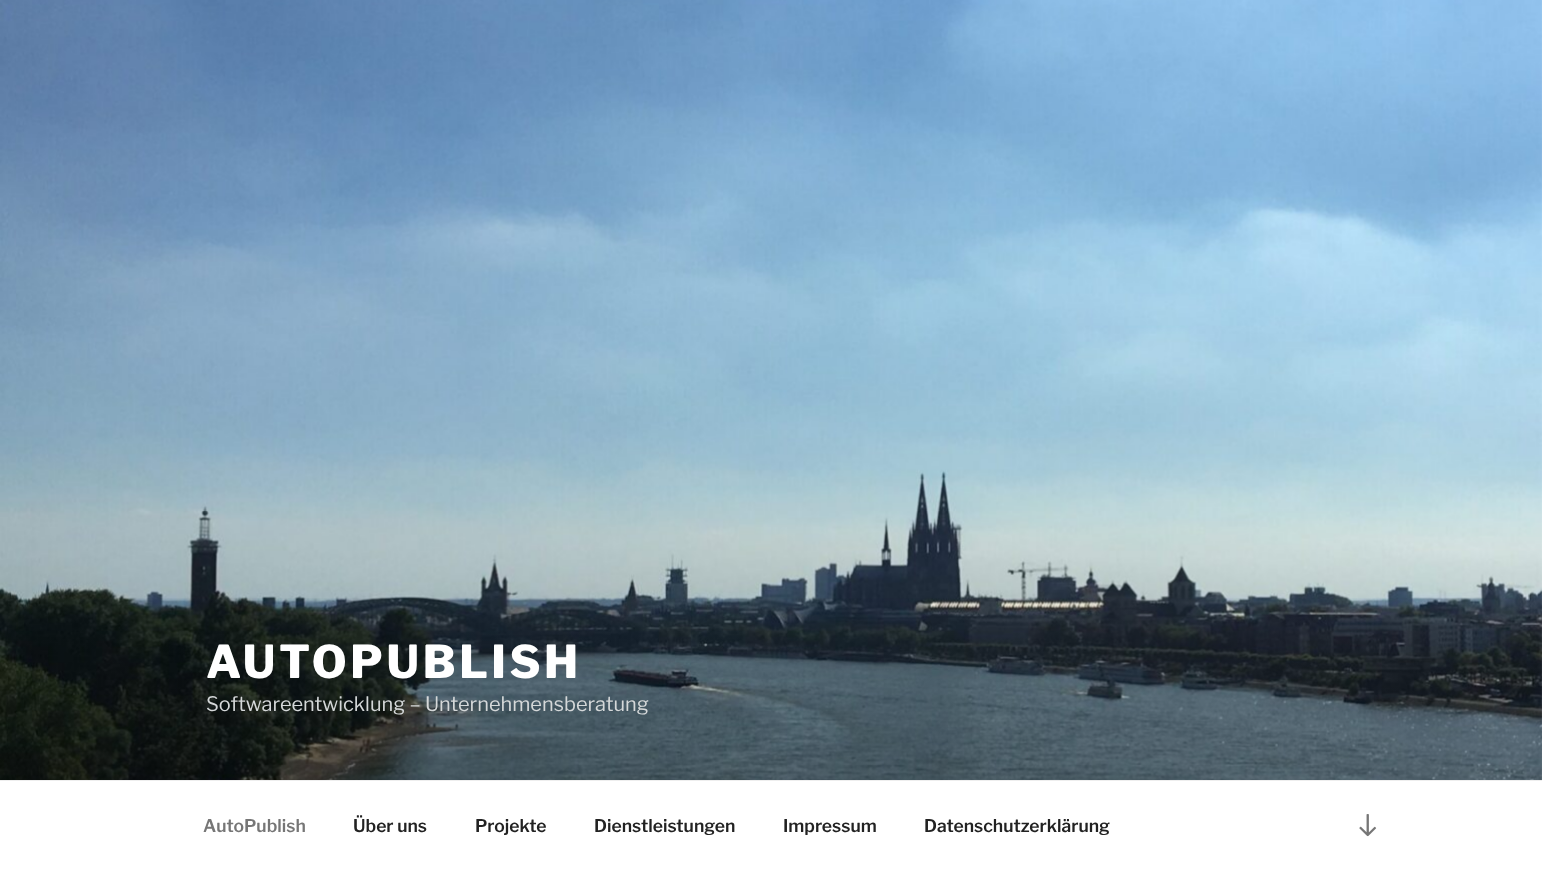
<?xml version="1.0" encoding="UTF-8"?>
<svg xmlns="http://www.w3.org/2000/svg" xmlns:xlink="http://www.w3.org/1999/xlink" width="1542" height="869">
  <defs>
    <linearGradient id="g1" gradientUnits="userSpaceOnUse" x1="771" y1="582" x2="771" y2="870"><stop offset="0" stop-color="#000000" stop-opacity="0" /><stop offset="0.75" stop-color="#000000" stop-opacity="0.3" /><stop offset="1" stop-color="#000000" stop-opacity="0.3" /></linearGradient>
  </defs>
  <rect width="100%" height="100%" fill="#ffffff" />
  <image x="0" y="0" width="1542" height="780" xlink:href="image1.png" />
  <rect y="598" width="1542" height="182" fill="url(#g1)" />
  <rect y="780" width="1542" height="1" fill="#eeeeee" />
  <image x="1359" y="814" width="18" height="23" xlink:href="image2.png" />
  <text x="206" y="678" style="font-family: Libre Franklin; font-size: 45px; font-weight: 100; letter-spacing: 3.6px; fill: #ffffff">AUTOPUBLISH</text>
  <text x="206" y="711" style="font-family: 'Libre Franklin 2'; font-size: 20px; font-weight: 100; fill: #d5d8d9">Softwareentwicklung – Unternehmensberatung</text>
  <text x="203" y="832" style="font-family: 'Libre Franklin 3'; font-size: 17.5px; font-weight: 100; fill: #767676">AutoPublish</text>
  <text x="353" y="832" style="font-family: 'Libre Franklin 3'; font-size: 17.5px; font-weight: 100; fill: #222222">Über uns</text>
  <text x="475" y="832" style="font-family: 'Libre Franklin 3'; font-size: 17.5px; font-weight: 100; fill: #222222">Projekte</text>
  <text x="594" y="832" style="font-family: 'Libre Franklin 3'; font-size: 17.5px; font-weight: 100; fill: #222222">Dienstleistungen</text>
  <text x="783" y="832" style="font-family: 'Libre Franklin 3'; font-size: 17.5px; font-weight: 100; fill: #222222">Impressum</text>
  <text x="924" y="832" style="font-family: 'Libre Franklin 3'; font-size: 17.5px; font-weight: 100; fill: #222222">Datenschutzerklärung</text>
</svg>
